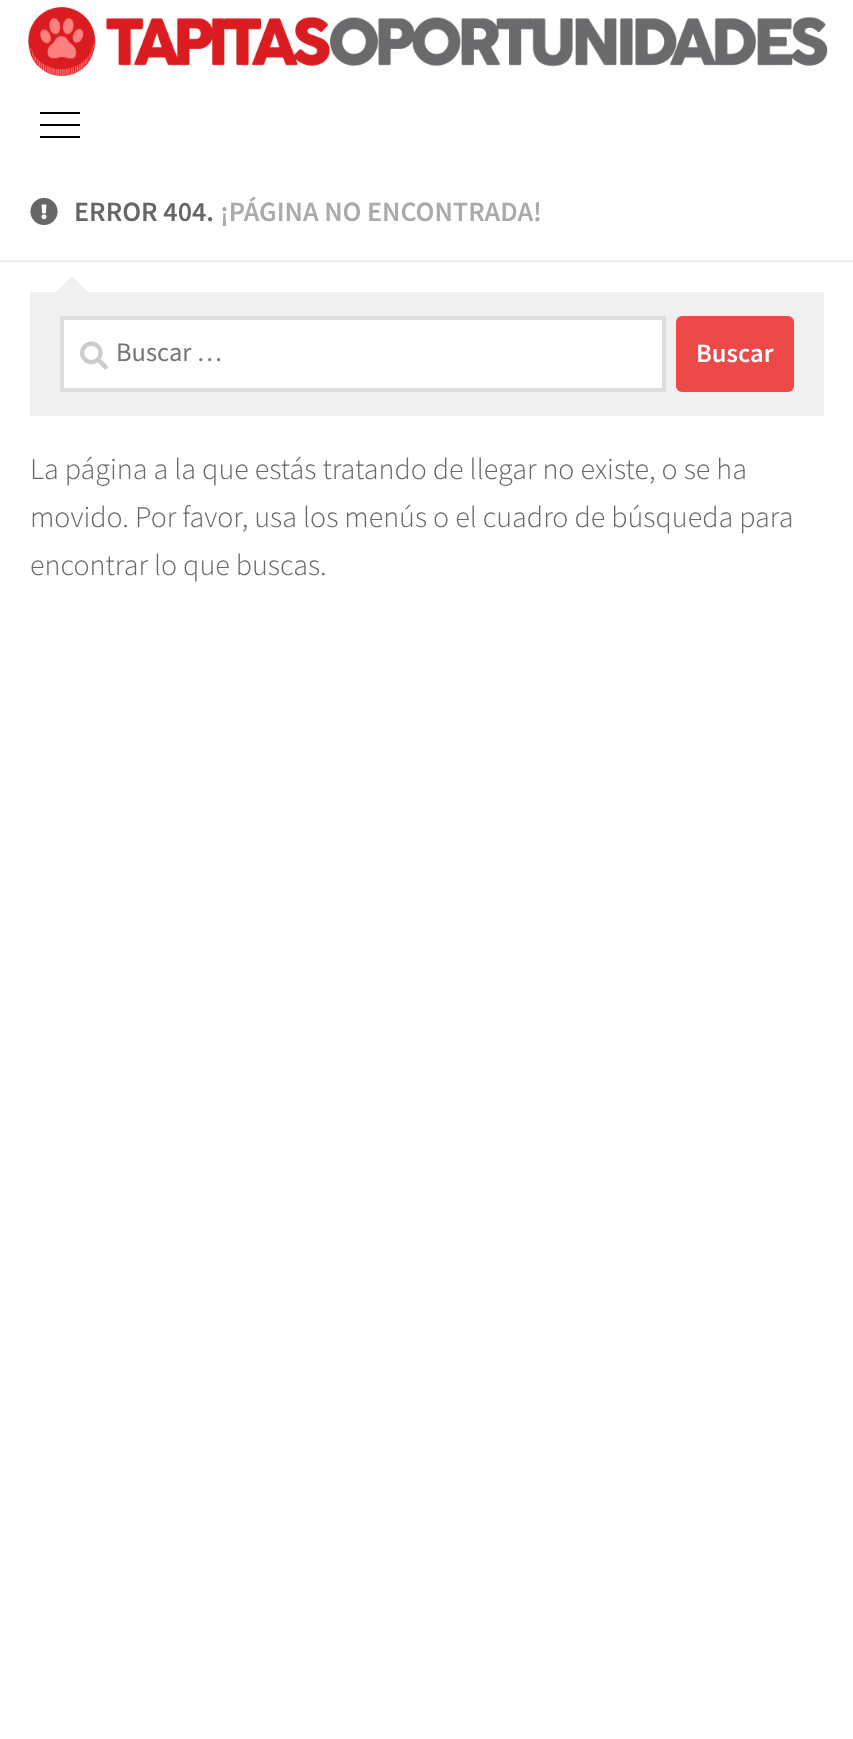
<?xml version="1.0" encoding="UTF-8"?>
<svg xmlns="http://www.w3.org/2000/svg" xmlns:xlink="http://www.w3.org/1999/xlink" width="853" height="1739">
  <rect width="100%" height="100%" fill="#ffffff" />
  <image x="28" y="7" width="800" height="69" xlink:href="image1.png" />
  <rect x="40" y="112" width="40" height="2" fill="#000000" />
  <rect x="40" y="124" width="40" height="2" fill="#000000" />
  <rect x="40" y="136" width="40" height="2" fill="#000000" />
  <rect y="260" width="853" height="2" fill="#eeeeee" />
  <image x="30" y="198" width="28" height="27" xlink:href="image2.png" />
  <rect x="30" y="292" width="794" height="124" fill="#f0f0f0" />
  <path d="M 88 292 h -32 l 16 -16 z" fill="#f1f1f1" />
  <rect x="62" y="318" width="602" height="72" fill="#ffffff" stroke="#dddddd" stroke-width="4" />
  <image x="80" y="341" width="28" height="29" xlink:href="image3.png" />
  <rect x="676" y="316" width="118" height="76" rx="6" fill="#ed4949" />
  <text x="74" y="221" style="font-family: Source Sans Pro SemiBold; font-size: 28px; font-weight: 600; fill: #666666">ERROR 404.</text>
  <text x="220" y="221" style="font-family: Source Sans Pro SemiBold; font-size: 28px; font-weight: 600; fill: #aaaaaa">¡PÁGINA NO ENCONTRADA!</text>
  <text x="116" y="361" style="font-family: Source Sans Pro; font-size: 26.5px; fill: #757575">Buscar …</text>
  <text x="696" y="362" style="font-family: Source Sans Pro SemiBold; font-size: 26.5px; font-weight: 600; fill: #ffffff">Buscar</text>
  <text x="30" y="479" style="font-family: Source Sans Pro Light; font-size: 30px; font-weight: 300; fill: #666666">La página a la que estás tratando de llegar no existe, o se ha</text>
  <text x="30" y="527" style="font-family: Source Sans Pro Light; font-size: 30px; font-weight: 300; fill: #666666">movido. Por favor, usa los menús o el cuadro de búsqueda para</text>
  <text x="30" y="575" style="font-family: Source Sans Pro Light; font-size: 30px; font-weight: 300; fill: #666666">encontrar lo que buscas.</text>
</svg>
